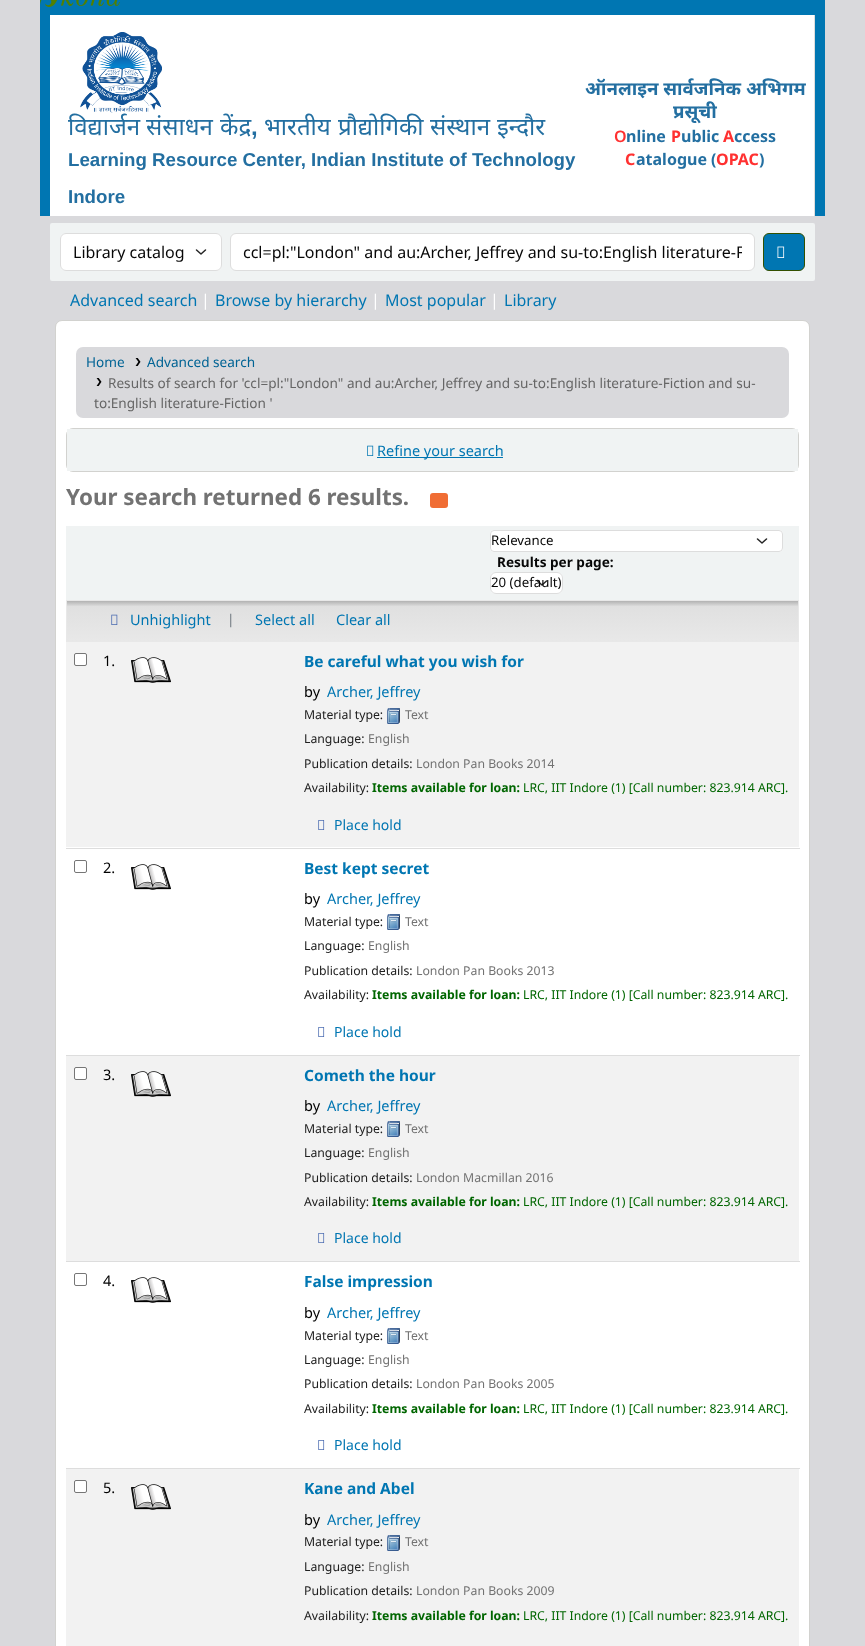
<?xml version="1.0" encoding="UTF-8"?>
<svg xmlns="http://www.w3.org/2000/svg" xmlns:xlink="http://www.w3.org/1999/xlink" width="865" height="1646">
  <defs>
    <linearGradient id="g1" gradientUnits="userSpaceOnUse" x1="433" y1="601" x2="433" y2="641"><stop offset="0" stop-color="#b2b2b2" /><stop offset="0.14" stop-color="#e0e0e0" /><stop offset="1" stop-color="#e8e8e8" /></linearGradient>
    <clipPath id="clip1"><rect x="243" y="240" width="499" height="24" /></clipPath>
  </defs>
  <rect width="100%" height="100%" fill="#d9d9dc" />
  <rect x="40" width="785" height="216" fill="#0076b2" />
  <image x="40" y="0" width="80" height="7" xlink:href="image1.png" />
  <rect x="814" y="15" width="1" height="201" fill="#dddddd" />
  <rect x="50" y="15" width="764" height="201" fill="#ffffff" />
  <image x="80" y="32" width="82" height="81" xlink:href="image2.png" />
  <rect x="50" y="223" width="765" height="58" rx="2" fill="#f0f3f3" />
  <rect x="60" y="233" width="162" height="38" rx="6" fill="#ffffff" />
  <path d="M 196.5 250 l 4.5 4 l 4.5 -4" fill="none" stroke="#252525" stroke-width="1.5" stroke-linecap="round" stroke-linejoin="round" />
  <rect x="60.5" y="233.5" width="161" height="37" rx="5.5" fill="none" stroke="#dddddd" />
  <rect x="230.5" y="233.5" width="524" height="37" rx="5.5" fill="#ffffff" stroke="#dddddd" />
  <rect x="763.5" y="233.5" width="41" height="37" rx="5.5" fill="#0076b2" stroke="#335000" />
  <image x="777" y="246" width="8" height="12" xlink:href="image3.png" />
  <rect x="55" y="321" width="755" height="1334" rx="7" fill="#000000" fill-opacity="0.2" filter="blur(0.5px)" />
  <rect x="55.5" y="320.5" width="754" height="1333" rx="6.5" fill="#ffffff" stroke="#d2d2cf" />
  <rect x="76" y="347" width="713" height="71" rx="7" fill="#d9d9dc" />
  <image x="135" y="358" width="6" height="8" xlink:href="image4.png" />
  <image x="96" y="378" width="6" height="8" xlink:href="image4.png" />
  <rect x="66.5" y="428.5" width="732" height="43" rx="6.5" fill="none" stroke="#d2d2cf" />
  <rect x="67" y="429" width="731" height="42" fill="#f0f3f3" />
  <image x="367" y="445" width="7" height="11" xlink:href="image5.png" />
  <rect x="377" y="457" width="126" height="1" fill="#0076b2" />
  <rect x="430" y="493" width="18" height="15" rx="3" fill="#f06d34" />
  <rect x="66" y="526" width="733" height="74" fill="#f0f3f3" />
  <rect x="490" y="530" width="293" height="22" rx="4" fill="#ffffff" />
  <path d="M 757.5 539 l 4.5 4 l 4.5 -4" fill="none" stroke="#252525" stroke-width="1.5" stroke-linecap="round" stroke-linejoin="round" />
  <rect x="490.5" y="530.5" width="292" height="21" rx="3.5" fill="none" stroke="#dddddd" />
  <rect x="490" y="572" width="73" height="22" rx="6" fill="#ffffff" />
  <path d="M 537.5 581 l 4.5 4 l 4.5 -4" fill="none" stroke="#252525" stroke-width="1.5" stroke-linecap="round" stroke-linejoin="round" />
  <rect x="490.5" y="572.5" width="72" height="21" rx="5.5" fill="none" stroke="#dddddd" />
  <rect x="67" y="601" width="731" height="40" fill="url(#g1)" />
  <rect x="66.5" y="600.5" width="732" height="41" fill="none" stroke="#e8e8e8" />
  <image x="111" y="614" width="7" height="11" xlink:href="image6.png" />
  <rect x="66" y="642" width="733" height="205" fill="#f2f2f2" />
  <rect x="74.5" y="653.5" width="12" height="12" rx="1.5" fill="#ffffff" stroke="#767676" />
  <image x="131" y="657" width="40" height="26" xlink:href="image7.png" />
  <rect x="66" y="848" width="734" height="1" fill="#dddddd" />
  <image x="387" y="708" width="13" height="16" xlink:href="image8.png" />
  <image x="318" y="820" width="7" height="10" xlink:href="image9.png" />
  <rect x="74.5" y="860.5" width="12" height="12" rx="1.5" fill="none" stroke="#767676" />
  <image x="131" y="864" width="40" height="26" xlink:href="image10.png" />
  <rect x="66" y="1055" width="734" height="1" fill="#dddddd" />
  <image x="387" y="914" width="13" height="16" xlink:href="image11.png" />
  <image x="318" y="1027" width="7" height="10" xlink:href="image12.png" />
  <rect x="66" y="1056" width="733" height="205" fill="#f2f2f2" />
  <rect x="74.5" y="1067.5" width="12" height="12" rx="1.5" fill="#ffffff" stroke="#767676" />
  <image x="131" y="1071" width="40" height="26" xlink:href="image7.png" />
  <rect x="66" y="1261" width="734" height="1" fill="#dddddd" />
  <image x="387" y="1121" width="13" height="16" xlink:href="image8.png" />
  <image x="318" y="1233" width="7" height="10" xlink:href="image9.png" />
  <rect x="74.5" y="1273.5" width="12" height="12" rx="1.5" fill="none" stroke="#767676" />
  <image x="131" y="1277" width="40" height="26" xlink:href="image10.png" />
  <rect x="66" y="1468" width="734" height="1" fill="#dddddd" />
  <image x="387" y="1328" width="13" height="16" xlink:href="image11.png" />
  <image x="318" y="1440" width="7" height="10" xlink:href="image12.png" />
  <rect x="66" y="1469" width="733" height="177" fill="#f2f2f2" />
  <rect x="74.5" y="1480.5" width="12" height="12" rx="1.5" fill="#ffffff" stroke="#767676" />
  <image x="131" y="1484" width="40" height="26" xlink:href="image7.png" />
  <image x="387" y="1535" width="13" height="16" xlink:href="image8.png" />
  <text x="68" y="135" style="font-family: Noto Sans; font-size: 24px; fill: #236fa1">विद्यार्जन</text>
  <text x="146" y="135" style="font-family: Noto Sans; font-size: 24px; fill: #236fa1">संसाधन</text>
  <text x="220" y="135" style="font-family: Noto Sans; font-size: 24px; fill: #236fa1">केंद्र</text>
  <text x="251" y="135" style="font-family: Liberation Sans; font-size: 24px; font-weight: bold; fill: #236fa1">,</text>
  <text x="264" y="135" style="font-family: Noto Sans; font-size: 24px; fill: #236fa1">भारतीय</text>
  <text x="338" y="135" style="font-family: Noto Sans; font-size: 24px; fill: #236fa1">प्रौद्योगिकी</text>
  <text x="430" y="135" style="font-family: Noto Sans; font-size: 24px; fill: #236fa1">संस्थान</text>
  <text x="497" y="135" style="font-family: Noto Sans; font-size: 24px; fill: #236fa1">इन्दौर</text>
  <text x="68" y="166" style="font-family: Liberation Sans; font-size: 18.7px; font-weight: bold; fill: #236fa1">Learning Resource Center, Indian Institute of Technology</text>
  <text x="68" y="203" style="font-family: Liberation Sans; font-size: 18.7px; font-weight: bold; fill: #236fa1">Indore</text>
  <text x="585" y="95" style="font-family: Noto Sans; font-size: 18.7px; font-weight: bold; fill: #236fa1">ऑनलाइन सार्वजनिक अभिगम</text>
  <text x="673" y="118" style="font-family: Noto Sans; font-size: 18.7px; font-weight: bold; fill: #236fa1">प्रसूची</text>
  <text x="614" y="142" style="font-family: Noto Sans; font-size: 16px; font-weight: 600; fill: #ff3131">O</text>
  <text x="626" y="142" style="font-family: Noto Sans; font-size: 16px; font-weight: bold; fill: #236fa1">nline</text>
  <text x="671" y="142" style="font-family: Noto Sans; font-size: 16px; font-weight: bold; fill: #ff3131">P</text>
  <text x="681" y="142" style="font-family: Noto Sans; font-size: 16px; font-weight: bold; fill: #236fa1">ublic</text>
  <text x="723" y="142" style="font-family: Noto Sans; font-size: 16px; font-weight: bold; fill: #ff3131">A</text>
  <text x="734" y="142" style="font-family: Noto Sans; font-size: 16px; font-weight: bold; fill: #236fa1">ccess</text>
  <text x="625" y="165" style="font-family: Noto Sans; font-size: 16px; font-weight: bold; fill: #ff3131">C</text>
  <text x="636" y="165" style="font-family: Noto Sans; font-size: 16px; font-weight: bold; fill: #236fa1">atalogue (</text>
  <text x="716" y="165" style="font-family: Noto Sans; font-size: 16px; font-weight: bold; fill: #ff3131">OPAC</text>
  <text x="759" y="165" style="font-family: Noto Sans; font-size: 16px; font-weight: bold; fill: #236fa1">)</text>
  <text x="73" y="258" style="font-family: Noto Sans; font-size: 16px; fill: #070707">Library catalog</text>
  <g clip-path="url(#clip1)">
    <text x="243" y="258" style="font-family: Noto Sans; font-size: 16px; fill: #070707">ccl=pl:"London" and au:Archer, Jeffrey and su-to:English literature-F</text>
  </g>
  <text x="70" y="306" style="font-family: Noto Sans; font-size: 16px; fill: #0076b2">Advanced search</text>
  <text x="201" y="306" style="font-family: Noto Sans; font-size: 16px; fill: #ffffff">|</text>
  <text x="215" y="306" style="font-family: Noto Sans; font-size: 16px; fill: #0076b2">Browse by hierarchy</text>
  <text x="371" y="306" style="font-family: Noto Sans; font-size: 16px; fill: #ffffff">|</text>
  <text x="385" y="306" style="font-family: Noto Sans; font-size: 16px; fill: #0076b2">Most popular</text>
  <text x="490" y="306" style="font-family: Noto Sans; font-size: 16px; fill: #ffffff">|</text>
  <text x="504" y="306" style="font-family: Noto Sans; font-size: 16px; fill: #0076b2">Library</text>
  <text x="86" y="367" style="font-family: Noto Sans; font-size: 13.6px; fill: #006394">Home</text>
  <text x="147" y="367" style="font-family: Noto Sans; font-size: 13.6px; fill: #006394">Advanced search</text>
  <text x="108" y="388" style="font-family: Noto Sans; font-size: 13.6px; fill: #666666">Results of search for 'ccl=pl:"London" and au:Archer, Jeffrey and su-to:English literature-Fiction and su-</text>
  <text x="94" y="408" style="font-family: Noto Sans; font-size: 13.6px; fill: #666666">to:English literature-Fiction '</text>
  <text x="377" y="456" style="font-family: Noto Sans; font-size: 14.5px; fill: #0076b2">Refine your search</text>
  <text x="66" y="505" style="font-family: Noto Sans; font-size: 22.4px; font-weight: bold; fill: #727272">Your search returned 6 results.</text>
  <text x="491" y="545" style="font-family: Noto Sans; font-size: 13.25px; fill: #070707">Relevance</text>
  <text x="497" y="567" style="font-family: Noto Sans; font-size: 13.6px; font-weight: bold; fill: #070707">Results per page:</text>
  <text x="491" y="587" style="font-family: Noto Sans; font-size: 13.25px; fill: #070707">20 (default)</text>
  <text x="130" y="625" style="font-family: Noto Sans; font-size: 14.5px; fill: #0076b2">Unhighlight</text>
  <text x="227" y="624" style="font-family: Noto Sans; font-size: 13.6px; fill: #6c757d">|</text>
  <text x="255" y="625" style="font-family: Noto Sans; font-size: 14.5px; fill: #0076b2">Select all</text>
  <text x="336" y="625" style="font-family: Noto Sans; font-size: 14.5px; fill: #0076b2">Clear all</text>
  <text x="103" y="666" style="font-family: Noto Sans; font-size: 14.5px; fill: #000000">1.</text>
  <text x="304" y="667" style="font-family: Noto Sans; font-size: 15.5px; font-weight: bold; fill: #0076b2">Be careful what you wish for</text>
  <text x="304" y="697" style="font-family: Noto Sans; font-size: 14.5px; fill: #000000">by</text>
  <text x="327" y="697" style="font-family: Noto Sans; font-size: 14.5px; fill: #0076b2">Archer, Jeffrey</text>
  <text x="304" y="719" style="font-family: Noto Sans; font-size: 12.25px; fill: #202020">Material type:</text>
  <text x="405" y="719" style="font-family: Noto Sans; font-size: 12.25px; fill: #727272">Text</text>
  <text x="304" y="743" style="font-family: Noto Sans; font-size: 12.25px; fill: #202020">Language:</text>
  <text x="368" y="743" style="font-family: Noto Sans; font-size: 12.25px; fill: #727272">English</text>
  <text x="304" y="768" style="font-family: Noto Sans; font-size: 12.25px; fill: #202020">Publication details:</text>
  <text x="416" y="768" style="font-family: Noto Sans; font-size: 12.25px; fill: #727272">London Pan Books 2014</text>
  <text x="304" y="792" style="font-family: Noto Sans; font-size: 12.25px; fill: #202020">Availability:</text>
  <text x="372" y="792" style="font-family: Noto Sans; font-size: 12.25px; font-weight: bold; fill: #006600">Items available for loan:</text>
  <text x="523" y="792" style="font-family: Noto Sans; font-size: 12.25px; fill: #006600">LRC, IIT Indore (1) [Call number: 823.914 ARC].</text>
  <text x="334" y="830" style="font-family: Noto Sans; font-size: 14px; fill: #0076b2">Place hold</text>
  <text x="103" y="873" style="font-family: Noto Sans; font-size: 14.5px; fill: #000000">2.</text>
  <text x="304" y="874" style="font-family: Noto Sans; font-size: 15.5px; font-weight: bold; fill: #0076b2">Best kept secret</text>
  <text x="304" y="904" style="font-family: Noto Sans; font-size: 14.5px; fill: #000000">by</text>
  <text x="327" y="904" style="font-family: Noto Sans; font-size: 14.5px; fill: #0076b2">Archer, Jeffrey</text>
  <text x="304" y="926" style="font-family: Noto Sans; font-size: 12.25px; fill: #202020">Material type:</text>
  <text x="405" y="926" style="font-family: Noto Sans; font-size: 12.25px; fill: #727272">Text</text>
  <text x="304" y="950" style="font-family: Noto Sans; font-size: 12.25px; fill: #202020">Language:</text>
  <text x="368" y="950" style="font-family: Noto Sans; font-size: 12.25px; fill: #727272">English</text>
  <text x="304" y="975" style="font-family: Noto Sans; font-size: 12.25px; fill: #202020">Publication details:</text>
  <text x="416" y="975" style="font-family: Noto Sans; font-size: 12.25px; fill: #727272">London Pan Books 2013</text>
  <text x="304" y="999" style="font-family: Noto Sans; font-size: 12.25px; fill: #202020">Availability:</text>
  <text x="372" y="999" style="font-family: Noto Sans; font-size: 12.25px; font-weight: bold; fill: #006600">Items available for loan:</text>
  <text x="523" y="999" style="font-family: Noto Sans; font-size: 12.25px; fill: #006600">LRC, IIT Indore (1) [Call number: 823.914 ARC].</text>
  <text x="334" y="1037" style="font-family: Noto Sans; font-size: 14px; fill: #0076b2">Place hold</text>
  <text x="103" y="1080" style="font-family: Noto Sans; font-size: 14.5px; fill: #000000">3.</text>
  <text x="304" y="1081" style="font-family: Noto Sans; font-size: 15.5px; font-weight: bold; fill: #0076b2">Cometh the hour</text>
  <text x="304" y="1111" style="font-family: Noto Sans; font-size: 14.5px; fill: #000000">by</text>
  <text x="327" y="1111" style="font-family: Noto Sans; font-size: 14.5px; fill: #0076b2">Archer, Jeffrey</text>
  <text x="304" y="1133" style="font-family: Noto Sans; font-size: 12.25px; fill: #202020">Material type:</text>
  <text x="405" y="1133" style="font-family: Noto Sans; font-size: 12.25px; fill: #727272">Text</text>
  <text x="304" y="1157" style="font-family: Noto Sans; font-size: 12.25px; fill: #202020">Language:</text>
  <text x="368" y="1157" style="font-family: Noto Sans; font-size: 12.25px; fill: #727272">English</text>
  <text x="304" y="1182" style="font-family: Noto Sans; font-size: 12.25px; fill: #202020">Publication details:</text>
  <text x="416" y="1182" style="font-family: Noto Sans; font-size: 12.25px; fill: #727272">London Macmillan 2016</text>
  <text x="304" y="1206" style="font-family: Noto Sans; font-size: 12.25px; fill: #202020">Availability:</text>
  <text x="372" y="1206" style="font-family: Noto Sans; font-size: 12.25px; font-weight: bold; fill: #006600">Items available for loan:</text>
  <text x="523" y="1206" style="font-family: Noto Sans; font-size: 12.25px; fill: #006600">LRC, IIT Indore (1) [Call number: 823.914 ARC].</text>
  <text x="334" y="1243" style="font-family: Noto Sans; font-size: 14px; fill: #0076b2">Place hold</text>
  <text x="103" y="1286" style="font-family: Noto Sans; font-size: 14.5px; fill: #000000">4.</text>
  <text x="304" y="1287" style="font-family: Noto Sans; font-size: 15.5px; font-weight: bold; fill: #0076b2">False impression</text>
  <text x="304" y="1318" style="font-family: Noto Sans; font-size: 14.5px; fill: #000000">by</text>
  <text x="327" y="1318" style="font-family: Noto Sans; font-size: 14.5px; fill: #0076b2">Archer, Jeffrey</text>
  <text x="304" y="1340" style="font-family: Noto Sans; font-size: 12.25px; fill: #202020">Material type:</text>
  <text x="405" y="1340" style="font-family: Noto Sans; font-size: 12.25px; fill: #727272">Text</text>
  <text x="304" y="1364" style="font-family: Noto Sans; font-size: 12.25px; fill: #202020">Language:</text>
  <text x="368" y="1364" style="font-family: Noto Sans; font-size: 12.25px; fill: #727272">English</text>
  <text x="304" y="1388" style="font-family: Noto Sans; font-size: 12.25px; fill: #202020">Publication details:</text>
  <text x="416" y="1388" style="font-family: Noto Sans; font-size: 12.25px; fill: #727272">London Pan Books 2005</text>
  <text x="304" y="1413" style="font-family: Noto Sans; font-size: 12.25px; fill: #202020">Availability:</text>
  <text x="372" y="1413" style="font-family: Noto Sans; font-size: 12.25px; font-weight: bold; fill: #006600">Items available for loan:</text>
  <text x="523" y="1413" style="font-family: Noto Sans; font-size: 12.25px; fill: #006600">LRC, IIT Indore (1) [Call number: 823.914 ARC].</text>
  <text x="334" y="1450" style="font-family: Noto Sans; font-size: 14px; fill: #0076b2">Place hold</text>
  <text x="103" y="1493" style="font-family: Noto Sans; font-size: 14.5px; fill: #000000">5.</text>
  <text x="304" y="1494" style="font-family: Noto Sans; font-size: 15.5px; font-weight: bold; fill: #0076b2">Kane and Abel</text>
  <text x="304" y="1525" style="font-family: Noto Sans; font-size: 14.5px; fill: #000000">by</text>
  <text x="327" y="1525" style="font-family: Noto Sans; font-size: 14.5px; fill: #0076b2">Archer, Jeffrey</text>
  <text x="304" y="1546" style="font-family: Noto Sans; font-size: 12.25px; fill: #202020">Material type:</text>
  <text x="405" y="1546" style="font-family: Noto Sans; font-size: 12.25px; fill: #727272">Text</text>
  <text x="304" y="1571" style="font-family: Noto Sans; font-size: 12.25px; fill: #202020">Language:</text>
  <text x="368" y="1571" style="font-family: Noto Sans; font-size: 12.25px; fill: #727272">English</text>
  <text x="304" y="1595" style="font-family: Noto Sans; font-size: 12.25px; fill: #202020">Publication details:</text>
  <text x="416" y="1595" style="font-family: Noto Sans; font-size: 12.25px; fill: #727272">London Pan Books 2009</text>
  <text x="304" y="1620" style="font-family: Noto Sans; font-size: 12.25px; fill: #202020">Availability:</text>
  <text x="372" y="1620" style="font-family: Noto Sans; font-size: 12.25px; font-weight: bold; fill: #006600">Items available for loan:</text>
  <text x="523" y="1620" style="font-family: Noto Sans; font-size: 12.25px; fill: #006600">LRC, IIT Indore (1) [Call number: 823.914 ARC].</text>
</svg>
